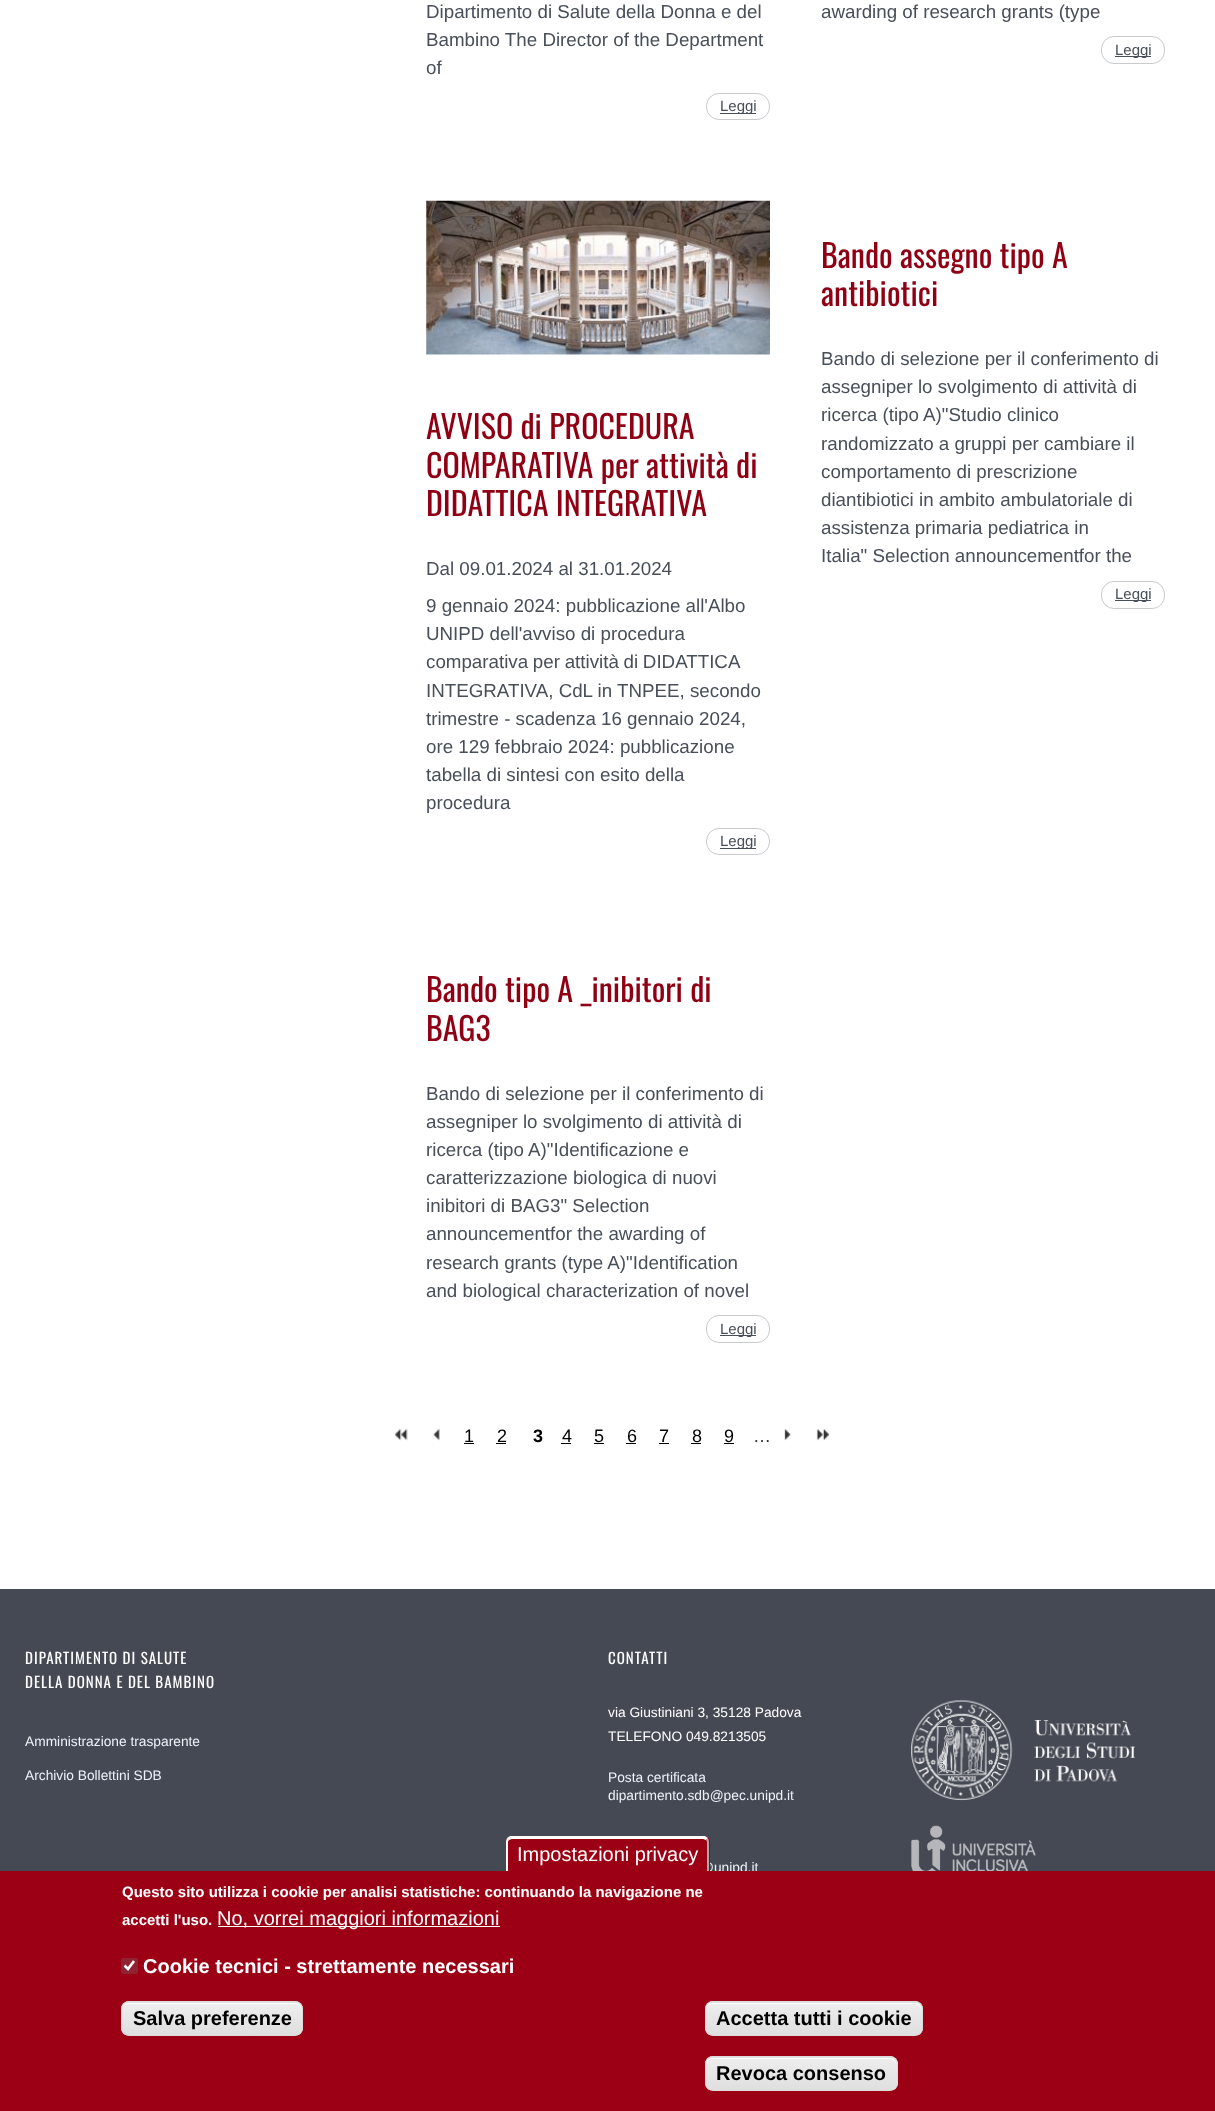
<?xml version="1.0" encoding="UTF-8"?>
<svg xmlns="http://www.w3.org/2000/svg" xmlns:xlink="http://www.w3.org/1999/xlink" width="1215" height="2111">
  <defs>
    <clipPath id="clip1"><rect x="121" y="2001" width="182" height="35" rx="8" /></clipPath>
    <linearGradient id="g1" gradientUnits="userSpaceOnUse" x1="212" y1="1970" x2="212" y2="2003"><stop offset="0.05" stop-color="#ededed" /><stop offset="1" stop-color="#dfdfdf" /></linearGradient>
    <linearGradient id="g2" gradientUnits="userSpaceOnUse" x1="212" y1="2003" x2="212" y2="2035"><stop offset="0.05" stop-color="#ededed" /><stop offset="1" stop-color="#dfdfdf" /></linearGradient>
    <clipPath id="clip2"><rect x="705" y="2001" width="218" height="35" rx="8" /></clipPath>
    <linearGradient id="g3" gradientUnits="userSpaceOnUse" x1="814" y1="1970" x2="814" y2="2003"><stop offset="0.05" stop-color="#ededed" /><stop offset="1" stop-color="#dfdfdf" /></linearGradient>
    <linearGradient id="g4" gradientUnits="userSpaceOnUse" x1="814" y1="2003" x2="814" y2="2035"><stop offset="0.05" stop-color="#ededed" /><stop offset="1" stop-color="#dfdfdf" /></linearGradient>
    <clipPath id="clip3"><rect x="705" y="2056" width="193" height="35" rx="8" /></clipPath>
    <linearGradient id="g5" gradientUnits="userSpaceOnUse" x1="801" y1="2025" x2="801" y2="2058"><stop offset="0.05" stop-color="#ededed" /><stop offset="1" stop-color="#dfdfdf" /></linearGradient>
    <linearGradient id="g6" gradientUnits="userSpaceOnUse" x1="801" y1="2058" x2="801" y2="2090"><stop offset="0.05" stop-color="#ededed" /><stop offset="1" stop-color="#dfdfdf" /></linearGradient>
  </defs>
  <rect width="100%" height="100%" fill="#ffffff" />
  <rect x="706.5" y="93.5" width="63" height="26" rx="12.5" fill="none" stroke="#c8cacc" />
  <rect x="720" y="113" width="36" height="1" fill="#484f59" />
  <rect x="1101.5" y="36.5" width="63" height="27" rx="12.5" fill="none" stroke="#c8cacc" />
  <rect x="1115" y="56" width="36" height="1" fill="#484f59" />
  <image x="426" y="200" width="344" height="155" xlink:href="image1.png" />
  <rect x="706.5" y="828.5" width="63" height="26" rx="12.5" fill="none" stroke="#c8cacc" />
  <rect x="720" y="848" width="36" height="1" fill="#484f59" />
  <rect x="1101.5" y="581.5" width="63" height="27" rx="12.5" fill="none" stroke="#c8cacc" />
  <rect x="1115" y="600" width="36" height="1" fill="#484f59" />
  <rect x="706.5" y="1315.5" width="63" height="27" rx="12.5" fill="none" stroke="#c8cacc" />
  <rect x="720" y="1335" width="36" height="1" fill="#484f59" />
  <image x="394" y="1428" width="14" height="13" xlink:href="image2.png" />
  <image x="433" y="1428" width="7" height="13" xlink:href="image3.png" />
  <rect x="464" y="1443" width="10" height="1" fill="#000000" />
  <rect x="496" y="1443" width="10" height="1" fill="#000000" />
  <rect x="561" y="1443" width="10" height="1" fill="#000000" />
  <rect x="594" y="1443" width="10" height="1" fill="#000000" />
  <rect x="626" y="1443" width="10" height="1" fill="#000000" />
  <rect x="659" y="1443" width="10" height="1" fill="#000000" />
  <rect x="691" y="1443" width="10" height="1" fill="#000000" />
  <rect x="724" y="1443" width="10" height="1" fill="#000000" />
  <image x="784" y="1429" width="7" height="12" xlink:href="image4.png" />
  <image x="816" y="1429" width="14" height="12" xlink:href="image5.png" />
  <rect y="1589" width="1215" height="282" fill="#454953" />
  <image x="911" y="1699" width="224" height="102" xlink:href="image6.png" />
  <image x="911" y="1825" width="125" height="46" xlink:href="image7.png" />
  <text x="426" y="18" style="font-family: Liberation Sans; font-size: 18.75px; fill: #484f59">Dipartimento di Salute della Donna e del</text>
  <text x="426" y="46" style="font-family: Liberation Sans; font-size: 18.75px; fill: #484f59">Bambino The Director of the Department</text>
  <text x="426" y="74" style="font-family: Liberation Sans; font-size: 18.75px; fill: #484f59">of</text>
  <text x="720" y="111" style="font-family: Liberation Sans; font-size: 15px; fill: #484f59">Leggi</text>
  <text x="821" y="18" style="font-family: Liberation Sans; font-size: 18.75px; fill: #484f59">awarding of research grants (type</text>
  <text x="1115" y="55" style="font-family: Liberation Sans; font-size: 15px; fill: #484f59">Leggi</text>
  <text x="426" y="439" style="font-family: Oswald; font-size: 32px; fill: #900014">AVVISO di PROCEDURA</text>
  <text x="426" y="478" style="font-family: Oswald; font-size: 32px; fill: #900014">COMPARATIVA per attività di</text>
  <text x="426" y="516" style="font-family: Oswald; font-size: 32px; fill: #900014">DIDATTICA INTEGRATIVA</text>
  <text x="426" y="575" style="font-family: Liberation Sans; font-size: 18.75px; fill: #484f59">Dal 09.01.2024 al 31.01.2024</text>
  <text x="426" y="612" style="font-family: Liberation Sans; font-size: 18.75px; fill: #484f59">9 gennaio 2024: pubblicazione all'Albo</text>
  <text x="426" y="640" style="font-family: Liberation Sans; font-size: 18.75px; fill: #484f59">UNIPD dell'avviso di procedura</text>
  <text x="426" y="668" word-spacing="-0.5" style="font-family: Liberation Sans; font-size: 18.75px; fill: #484f59">comparativa per attività di DIDATTICA</text>
  <text x="426" y="697" style="font-family: Liberation Sans; font-size: 18.75px; fill: #484f59">INTEGRATIVA, CdL in TNPEE, secondo</text>
  <text x="426" y="725" style="font-family: Liberation Sans; font-size: 18.75px; fill: #484f59">trimestre - scadenza 16 gennaio 2024,</text>
  <text x="426" y="753" style="font-family: Liberation Sans; font-size: 18.75px; fill: #484f59">ore 129 febbraio 2024: pubblicazione</text>
  <text x="426" y="781" style="font-family: Liberation Sans; font-size: 18.75px; fill: #484f59">tabella di sintesi con esito della</text>
  <text x="426" y="809" style="font-family: Liberation Sans; font-size: 18.75px; fill: #484f59">procedura</text>
  <text x="720" y="846" style="font-family: Liberation Sans; font-size: 15px; fill: #484f59">Leggi</text>
  <text x="821" y="268" style="font-family: Oswald; font-size: 32px; fill: #900014">Bando assegno tipo A</text>
  <text x="821" y="306" style="font-family: Oswald; font-size: 32px; fill: #900014">antibiotici</text>
  <text x="821" y="365" style="font-family: Liberation Sans; font-size: 18.75px; fill: #484f59">Bando di selezione per il conferimento di</text>
  <text x="821" y="393" style="font-family: Liberation Sans; font-size: 18.75px; fill: #484f59">assegniper lo svolgimento di attività di</text>
  <text x="821" y="421" style="font-family: Liberation Sans; font-size: 18.75px; fill: #484f59">ricerca (tipo A)"Studio clinico</text>
  <text x="821" y="450" style="font-family: Liberation Sans; font-size: 18.75px; fill: #484f59">randomizzato a gruppi per cambiare il</text>
  <text x="821" y="478" style="font-family: Liberation Sans; font-size: 18.75px; fill: #484f59">comportamento di prescrizione</text>
  <text x="821" y="506" style="font-family: Liberation Sans; font-size: 18.75px; fill: #484f59">diantibiotici in ambito ambulatoriale di</text>
  <text x="821" y="534" style="font-family: Liberation Sans; font-size: 18.75px; fill: #484f59">assistenza primaria pediatrica in</text>
  <text x="821" y="562" style="font-family: Liberation Sans; font-size: 18.75px; fill: #484f59">Italia" Selection announcementfor the</text>
  <text x="1115" y="599" style="font-family: Liberation Sans; font-size: 15px; fill: #484f59">Leggi</text>
  <text x="426" y="1002" style="font-family: Oswald; font-size: 32px; fill: #900014">Bando tipo A _inibitori di</text>
  <text x="426" y="1041" style="font-family: Oswald; font-size: 32px; fill: #900014">BAG3</text>
  <text x="426" y="1100" style="font-family: Liberation Sans; font-size: 18.75px; fill: #484f59">Bando di selezione per il conferimento di</text>
  <text x="426" y="1128" style="font-family: Liberation Sans; font-size: 18.75px; fill: #484f59">assegniper lo svolgimento di attività di</text>
  <text x="426" y="1156" style="font-family: Liberation Sans; font-size: 18.75px; fill: #484f59">ricerca (tipo A)"Identificazione e</text>
  <text x="426" y="1184" style="font-family: Liberation Sans; font-size: 18.75px; fill: #484f59">caratterizzazione biologica di nuovi</text>
  <text x="426" y="1212" style="font-family: Liberation Sans; font-size: 18.75px; fill: #484f59">inibitori di BAG3" Selection</text>
  <text x="426" y="1240" style="font-family: Liberation Sans; font-size: 18.75px; fill: #484f59">announcementfor the awarding of</text>
  <text x="426" y="1269" style="font-family: Liberation Sans; font-size: 18.75px; fill: #484f59">research grants (type A)"Identification</text>
  <text x="426" y="1297" style="font-family: Liberation Sans; font-size: 18.75px; fill: #484f59">and biological characterization of novel</text>
  <text x="720" y="1334" style="font-family: Liberation Sans; font-size: 15px; fill: #484f59">Leggi</text>
  <text x="464" y="1442" style="font-family: Liberation Sans; font-size: 18px; fill: #000000">1</text>
  <text x="497" y="1442" style="font-family: Liberation Sans; font-size: 18px; fill: #000000">2</text>
  <text x="533" y="1442" style="font-family: Liberation Sans; font-size: 18px; font-weight: bold; fill: #000000">3</text>
  <text x="562" y="1442" style="font-family: Liberation Sans; font-size: 18px; fill: #000000">4</text>
  <text x="594" y="1442" style="font-family: Liberation Sans; font-size: 18px; fill: #000000">5</text>
  <text x="627" y="1442" style="font-family: Liberation Sans; font-size: 18px; fill: #000000">6</text>
  <text x="659" y="1442" style="font-family: Liberation Sans; font-size: 18px; fill: #000000">7</text>
  <text x="692" y="1442" style="font-family: Liberation Sans; font-size: 18px; fill: #000000">8</text>
  <text x="724" y="1442" style="font-family: Liberation Sans; font-size: 18px; fill: #000000">9</text>
  <text x="753" y="1442" style="font-family: Liberation Sans; font-size: 18px; fill: #333333">…</text>
  <text x="25" y="1664" style="font-family: Oswald; font-size: 15px; letter-spacing: 1px; fill: #ffffff">DIPARTIMENTO DI SALUTE</text>
  <text x="25" y="1688" style="font-family: Oswald; font-size: 15px; letter-spacing: 1px; fill: #ffffff">DELLA DONNA E DEL BAMBINO</text>
  <text x="25" y="1746" style="font-family: Liberation Sans; font-size: 13.75px; fill: #ecf2f8">Amministrazione trasparente</text>
  <text x="25" y="1780" style="font-family: Liberation Sans; font-size: 13.75px; fill: #ecf2f8">Archivio Bollettini SDB</text>
  <text x="608" y="1664" style="font-family: Oswald; font-size: 15px; letter-spacing: 1px; fill: #ffffff">CONTATTI</text>
  <text x="608" y="1717" style="font-family: Liberation Sans; font-size: 13.75px; fill: #ffffff">via Giustiniani 3, 35128 Padova</text>
  <text x="608" y="1741" style="font-family: Liberation Sans; font-size: 13.75px; fill: #ffffff">TELEFONO 049.8213505</text>
  <text x="608" y="1782" style="font-family: Liberation Sans; font-size: 13.75px; fill: #ecf2f8">Posta certificata</text>
  <text x="608" y="1800" style="font-family: Liberation Sans; font-size: 13.75px; fill: #ecf2f8">dipartimento.sdb@pec.unipd.it</text>
  <text x="700" y="1872" style="font-family: Liberation Sans; font-size: 13.75px; fill: #ecf2f8">@unipd.it</text>
  <rect y="1871" width="1215" height="240" fill="#9b0014" />
  <path d="M 512 1836 h 192 c 3.5 0 6 2.5 6 6 v 29 h -204 v -29 c 0 -3.5 2.5 -6 6 -6 z" fill="#9b0014" />
  <path d="M 512 1839 l -3 1 l -2 -2 l 3 -2 h 195 l 3 2 l -2 2 l -3 -1 z" fill="#ffffff" />
  <path d="M 707.5 1838 l -1.5 2 l 1 1.5 v 29.5 h 2 v -29 c 0 -1.5 -0.5 -3 -1.5 -4 z" fill="#aaaaaa" />
  <path d="M 509 1840 l -1.5 -2 c -1 1 -1.5 2.5 -1.5 4 v 29 h 2 v -29.5 z" fill="#ffffff" />
  <text x="517" y="1861" style="font-family: Liberation Sans; font-size: 20px; fill: #ffffff">Impostazioni privacy</text>
  <text x="122" y="1897" style="font-family: Liberation Sans; font-size: 15px; font-weight: bold; fill: #ffffff">Questo sito utilizza i cookie per analisi statistiche: continuando la navigazione ne</text>
  <text x="122" y="1925" style="font-family: Liberation Sans; font-size: 15px; font-weight: bold; fill: #ffffff">accetti l'uso.</text>
  <rect x="218" y="1926" width="282" height="1" fill="#ffffff" />
  <text x="217" y="1925" style="font-family: Liberation Sans; font-size: 20px; fill: #ffffff">No, vorrei maggiori informazioni</text>
  <rect x="121" y="1958" width="17" height="16" rx="2.5" fill="#902331" />
  <path d="M 124.5 1965.5 l 3.5 3.5 l 6 -8" fill="none" stroke="#ffffff" stroke-width="2.6" />
  <text x="143" y="1973" style="font-family: Liberation Sans; font-size: 20px; font-weight: bold; fill: #ffffff">Cookie tecnici - strettamente necessari</text>
  <g clip-path="url(#clip1)">
    <rect x="121" y="2001" width="182" height="2" fill="url(#g1)" />
    <rect x="121" y="2003" width="182" height="32" fill="url(#g2)" />
  </g>
  <path d="M 129 2004 h 166 c 3 0 6 3 6 6 c 0 -3 -1 -6 -5 -7 h -168 c -2 0 -3 1 -4 3 c 1 -1 3 -2 5 -2 z" fill="#ffffff" />
  <rect x="121.5" y="2001.5" width="181" height="34" rx="7.5" fill="none" stroke="#dcdcdc" />
  <text x="133" y="2025" style="font-family: Liberation Sans; font-size: 20px; font-weight: bold; fill: #000000">Salva preferenze</text>
  <g clip-path="url(#clip2)">
    <rect x="705" y="2001" width="218" height="2" fill="url(#g3)" />
    <rect x="705" y="2003" width="218" height="32" fill="url(#g4)" />
  </g>
  <path d="M 712 2004 h 203 c 3 0 6 3 6 6 c 0 -3 -1 -6 -5 -7 h -204 c -4 0 -6 3 -6 7 c 0 -3 3 -6 6 -6 z" fill="#ffffff" />
  <rect x="705.5" y="2001.5" width="217" height="34" rx="7.5" fill="none" stroke="#dcdcdc" />
  <text x="716" y="2025" style="font-family: Liberation Sans; font-size: 20px; font-weight: bold; fill: #000000">Accetta tutti i cookie</text>
  <g clip-path="url(#clip3)">
    <rect x="705" y="2056" width="193" height="2" fill="url(#g5)" />
    <rect x="705" y="2058" width="193" height="32" fill="url(#g6)" />
  </g>
  <path d="M 712 2059 h 178 c 3 0 6 3 6 6 v -1 c 0 -3 -3 -6 -6 -6 h -178 c -3 0 -6 3 -6 6 v 1 c 0 -3 3 -6 6 -6 z" fill="#ffffff" />
  <rect x="705.5" y="2056.5" width="192" height="34" rx="7.5" fill="none" stroke="#dcdcdc" />
  <text x="716" y="2080" style="font-family: Liberation Sans; font-size: 20px; font-weight: bold; fill: #000000">Revoca consenso</text>
</svg>
